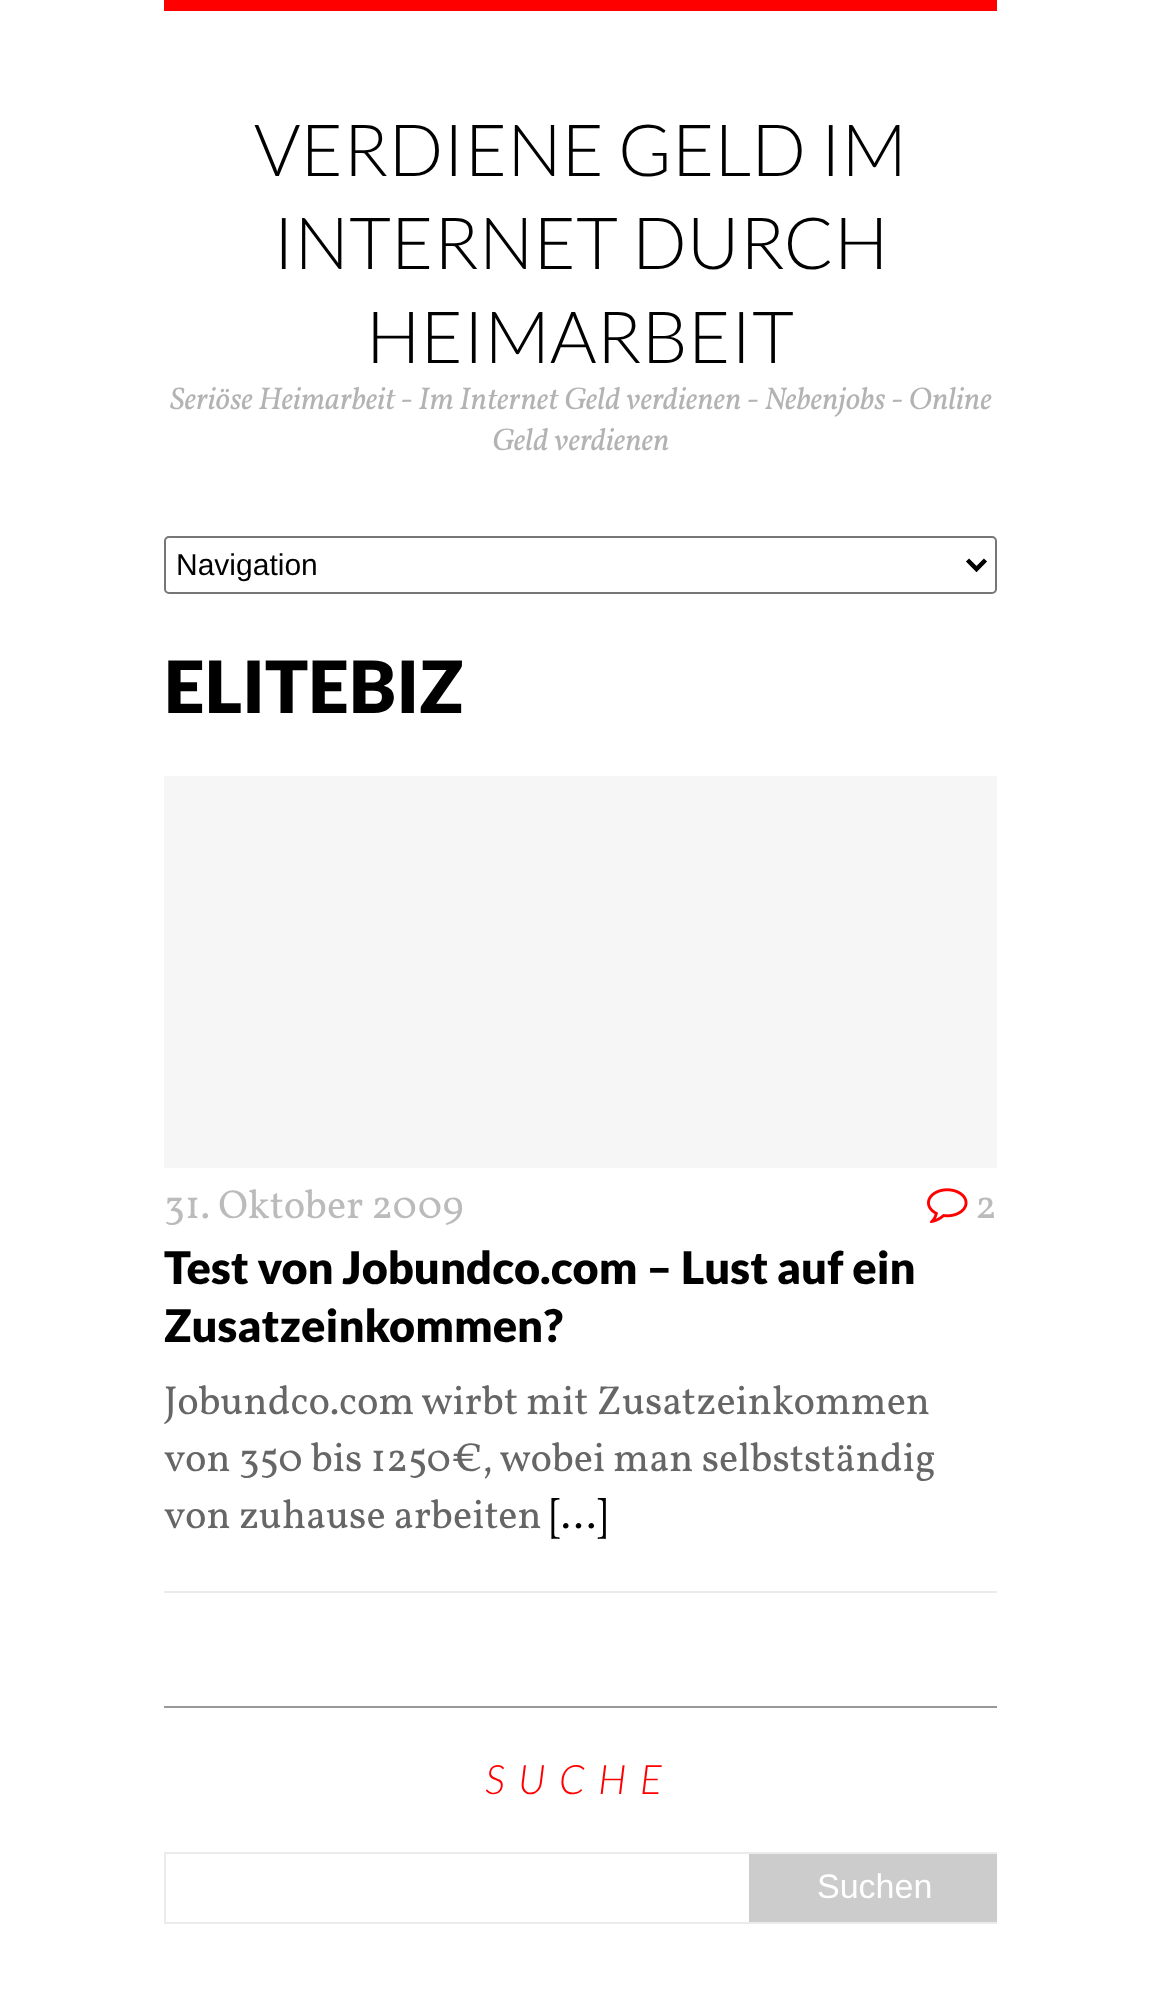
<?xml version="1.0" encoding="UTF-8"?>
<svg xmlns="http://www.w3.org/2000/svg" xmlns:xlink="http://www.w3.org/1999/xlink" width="1160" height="2008">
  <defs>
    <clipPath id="clip1"><rect x="164" y="1706" width="833" height="218" /></clipPath>
  </defs>
  <rect width="100%" height="100%" fill="#ffffff" />
  <rect x="164" width="833" height="11" fill="#ff0000" />
  <rect x="165" y="537" width="831" height="56" rx="4" fill="none" stroke="#767676" stroke-width="2" />
  <path d="M 967.5 560 l 9 9 l 9 -9" fill="none" stroke="#000000" stroke-width="4.5" />
  <rect x="164" y="1591" width="833" height="2" fill="#ebebeb" />
  <rect x="164" y="776" width="833" height="392" fill="#f6f6f6" />
  <image x="927" y="1188" width="41" height="35" xlink:href="image1.png" />
  <rect x="164" y="1706" width="833" height="2" fill="#999999" />
  <g clip-path="url(#clip1)">
    <rect x="165" y="1853" width="835" height="70" fill="none" stroke="#ebebeb" stroke-width="2" />
  </g>
  <rect x="749" y="1854" width="248" height="68" fill="#cccccc" />
  <text x="254" y="176" style="font-family: Lato; font-size: 72px; font-weight: 300; fill: #000000">VERDIENE GELD IM</text>
  <text x="273" y="269" style="font-family: Lato; font-size: 72px; font-weight: 300; fill: #000000">INTERNET DURCH</text>
  <text x="366" y="363" style="font-family: Lato; font-size: 72px; font-weight: 300; fill: #000000">HEIMARBEIT</text>
  <text x="170" y="409" style="font-family: Vollkorn; font-size: 31.5px; font-style: italic; fill: #b3b3b3">Seriöse Heimarbeit - Im Internet Geld verdienen - Nebenjobs - Online</text>
  <text x="492" y="450" style="font-family: Vollkorn; font-size: 31.5px; font-style: italic; fill: #b3b3b3">Geld verdienen</text>
  <text x="176" y="575" style="font-family: Liberation Sans; font-size: 30px; fill: #000000">Navigation</text>
  <text x="164" y="713" style="font-family: Lato; font-size: 72px; font-weight: 900; fill: #000000">ELITEBIZ</text>
  <text x="164" y="1218" style="font-family: Vollkorn; font-size: 40.5px; fill: #bbbbbb">31. Oktober 2009</text>
  <text x="975" y="1218" style="font-family: Vollkorn; font-size: 40.5px; fill: #bbbbbb">2</text>
  <text x="164" y="1284" style="font-family: Lato; font-size: 45px; font-weight: 900; fill: #000000">Test von Jobundco.com – Lust auf ein</text>
  <text x="164" y="1342" style="font-family: Lato; font-size: 45px; font-weight: 900; fill: #000000">Zusatzeinkommen?</text>
  <text x="164" y="1414" style="font-family: Vollkorn; font-size: 40.5px; fill: #666666">Jobundco.com wirbt mit Zusatzeinkommen</text>
  <text x="164" y="1471" style="font-family: Vollkorn; font-size: 40.5px; fill: #666666">von 350 bis 1250€, wobei man selbstständig</text>
  <text x="164" y="1528" style="font-family: Vollkorn; font-size: 40.5px; fill: #666666">von zuhause arbeiten</text>
  <text x="550" y="1528" style="font-family: Vollkorn; font-size: 40.5px; fill: #000000">[...]</text>
  <text x="485" y="1794" style="font-family: Lato; font-size: 40.5px; font-weight: 300; font-style: italic; letter-spacing: 13.5px; fill: #ff0000">SUCHE</text>
  <text x="817" y="1898" style="font-family: Liberation Sans; font-size: 34px; fill: #ffffff">Suchen</text>
</svg>
